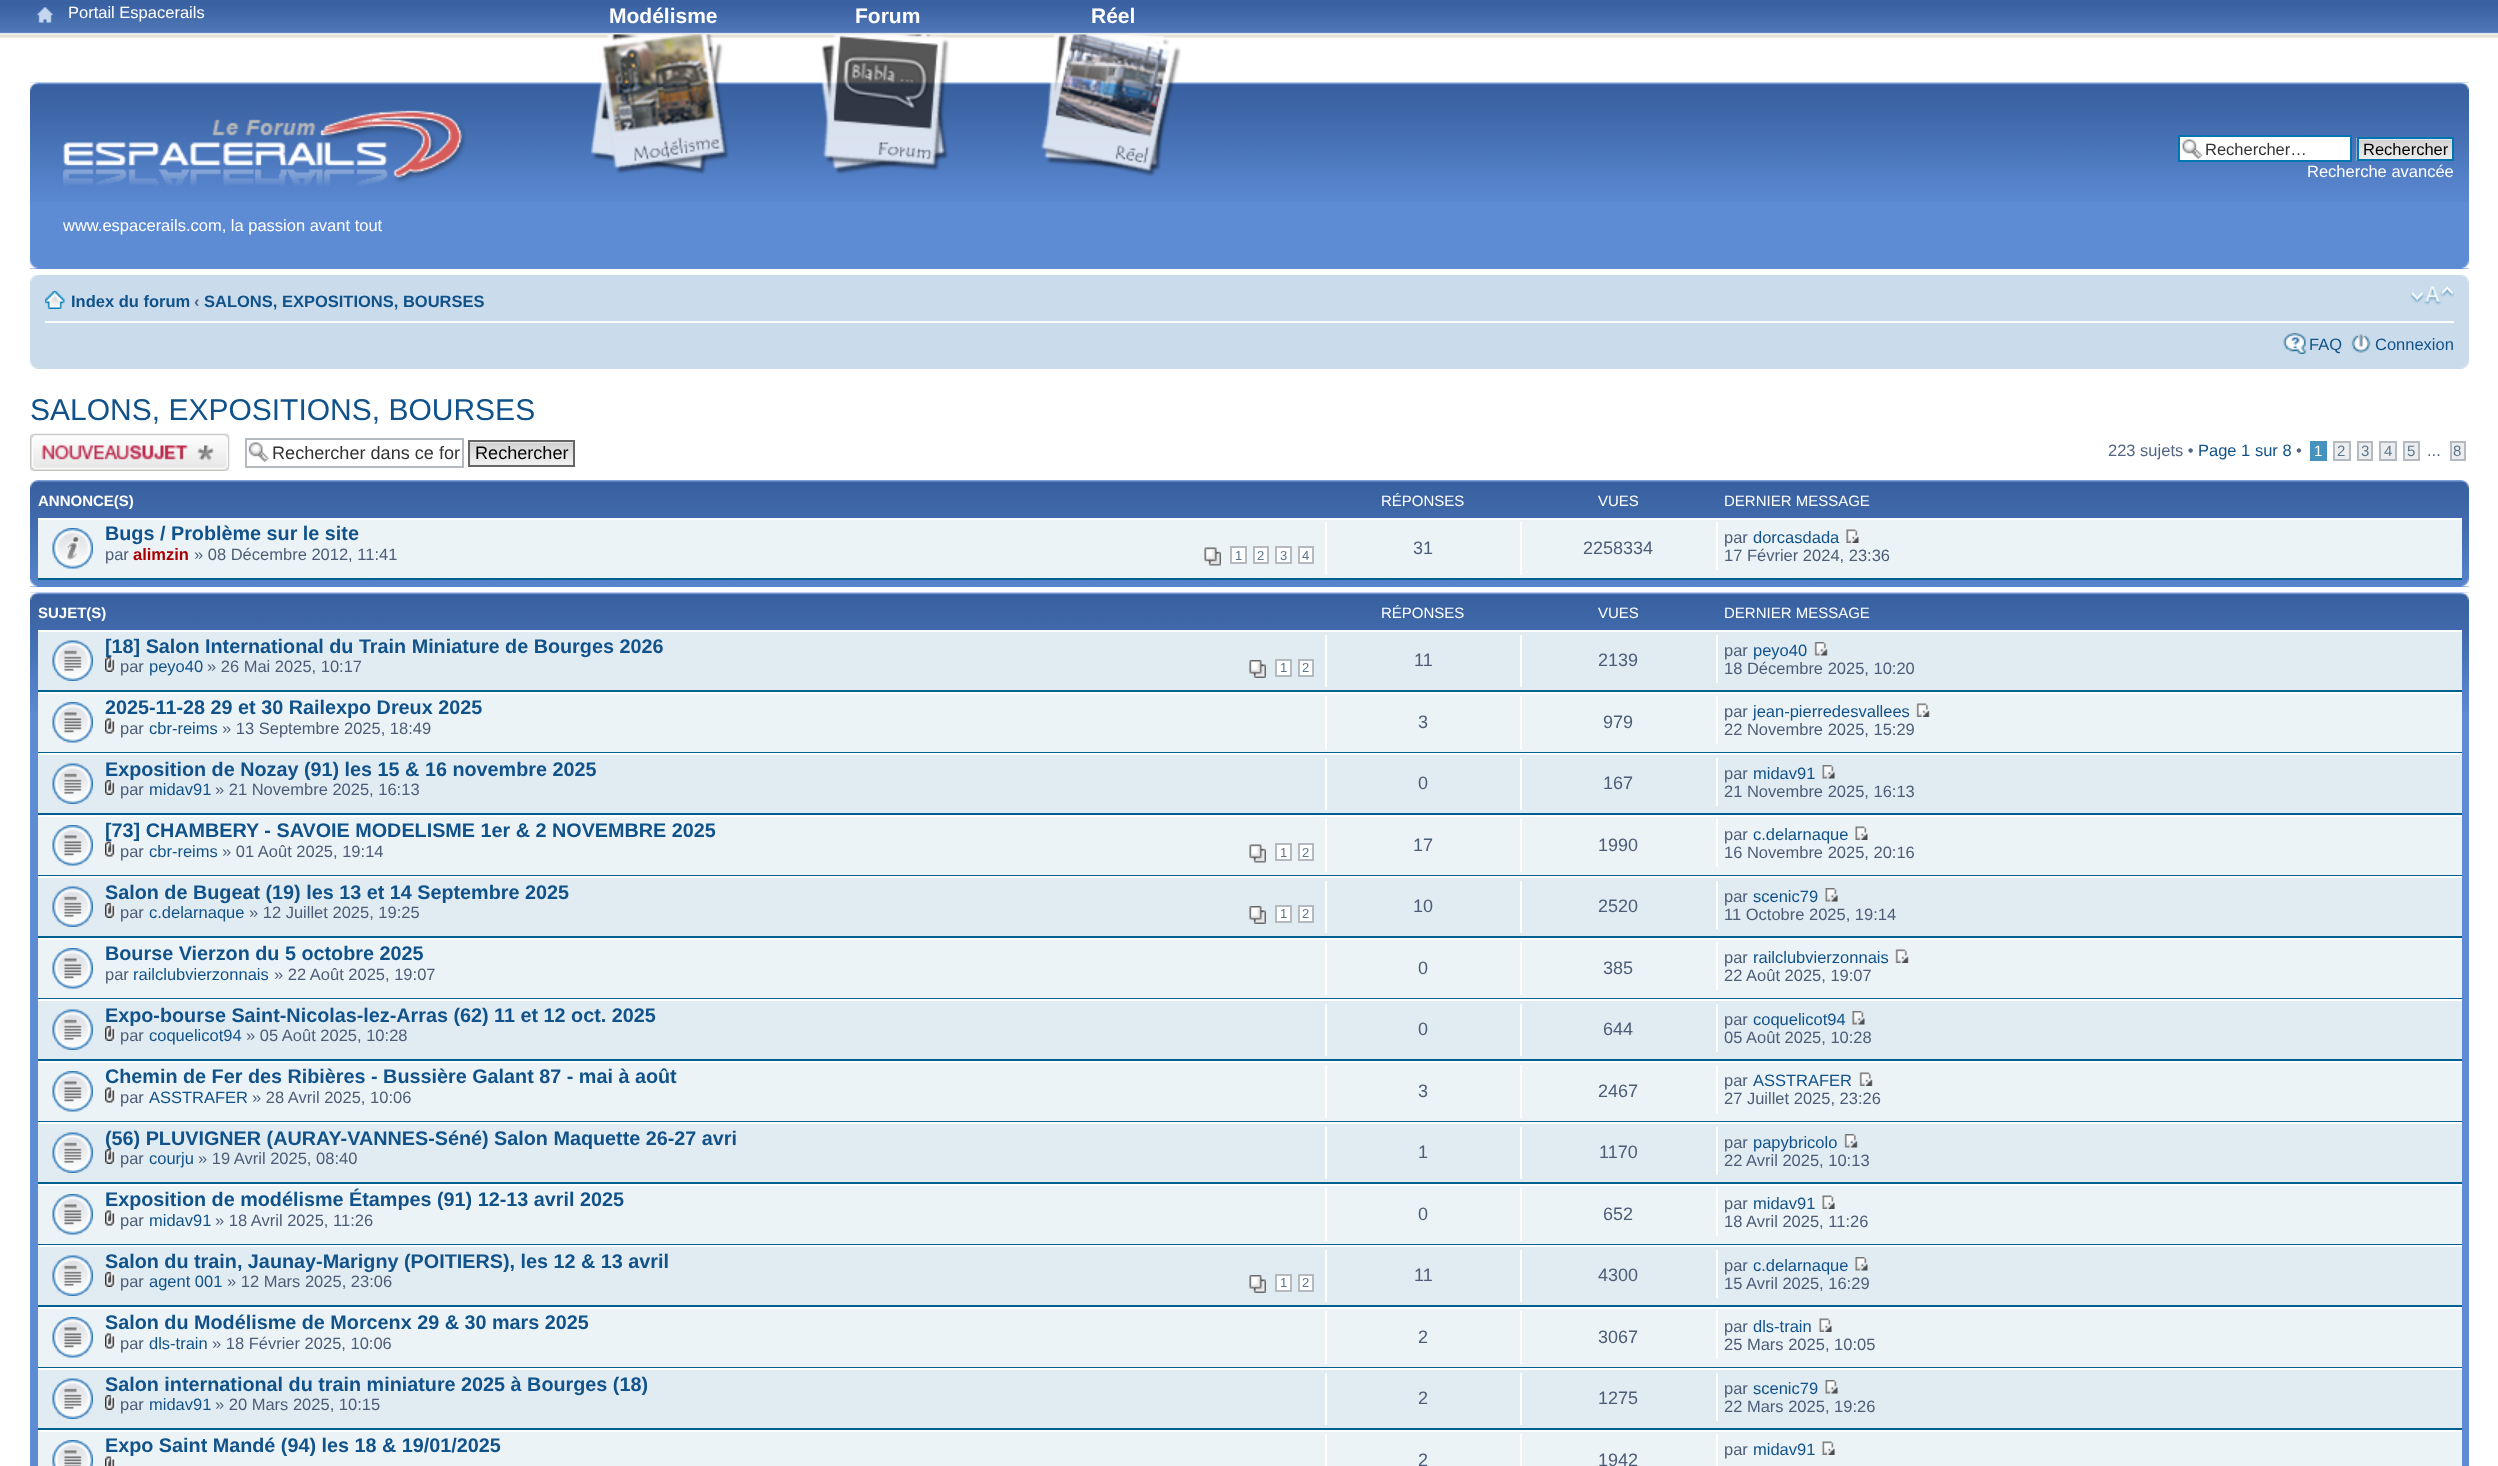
<?xml version="1.0" encoding="UTF-8"?>
<svg xmlns="http://www.w3.org/2000/svg" xmlns:xlink="http://www.w3.org/1999/xlink" width="2498" height="1466">
  <rect width="100%" height="100%" fill="#ffffff" />
  <image x="0" y="0" width="2498" height="38" xlink:href="image1.png" />
  <image x="37" y="7" width="16" height="16" xlink:href="image2.png" />
  <image x="30" y="82" width="2439" height="120" xlink:href="image6.png" />
  <image x="590" y="34" width="139" height="140" xlink:href="image3.png" />
  <image x="821" y="34" width="129" height="140" xlink:href="image4.png" />
  <image x="1040" y="34" width="141" height="143" xlink:href="image5.png" />
  <rect x="30" y="202" width="2439" height="67" fill="#5d8cd5" />
  <image x="30" y="82" width="8" height="8" xlink:href="image7.png" />
  <image x="2461" y="82" width="8" height="8" xlink:href="image8.png" />
  <rect x="2180" y="137" width="170" height="23" fill="#ffffff" />
  <image x="2182" y="139" width="21" height="20" xlink:href="image9.png" />
  <rect x="2179" y="136" width="172" height="25" fill="none" stroke="#0075b0" stroke-width="2" />
  <image x="2356" y="138" width="96" height="23" xlink:href="image10.png" />
  <rect x="2358" y="138" width="95" height="22" fill="none" stroke="#0075b0" stroke-width="2" />
  <image x="62" y="110" width="404" height="76" xlink:href="image11.png" />
  <image x="30" y="261" width="8" height="8" xlink:href="image12.png" />
  <image x="2461" y="261" width="8" height="8" xlink:href="image13.png" />
  <rect x="30" y="275" width="2439" height="94" fill="#cadceb" />
  <image x="30" y="275" width="8" height="7" xlink:href="image14.png" />
  <image x="2461" y="275" width="8" height="7" xlink:href="image15.png" />
  <rect x="45" y="321" width="2409" height="2" fill="#ffffff" />
  <image x="45" y="291" width="20" height="18" xlink:href="image16.png" />
  <image x="2410" y="286" width="44" height="19" xlink:href="image17.png" />
  <image x="2283" y="333" width="24" height="21" xlink:href="image18.png" />
  <image x="2351" y="334" width="20" height="19" xlink:href="image19.png" />
  <image x="30" y="361" width="8" height="8" xlink:href="image20.png" />
  <image x="2461" y="361" width="8" height="8" xlink:href="image21.png" />
  <image x="30" y="433" width="200" height="38" xlink:href="image22.png" />
  <image x="248" y="442" width="21" height="20" xlink:href="image23.png" />
  <rect x="246" y="439" width="217" height="28" fill="none" stroke="#b4bac0" stroke-width="2" />
  <image x="470" y="442" width="103" height="23" xlink:href="image24.png" />
  <rect x="469" y="441" width="105" height="25" fill="none" stroke="#666666" stroke-width="2" />
  <rect x="2310" y="441" width="17" height="20" fill="#4692bf" />
  <rect x="2334" y="442" width="16" height="18" fill="#ecedee" stroke="#b4bac0" stroke-width="2" />
  <rect x="2358" y="442" width="14" height="18" fill="#ecedee" stroke="#b4bac0" stroke-width="2" />
  <rect x="2380" y="442" width="16" height="18" fill="#ecedee" stroke="#b4bac0" stroke-width="2" />
  <rect x="2404" y="442" width="15" height="18" fill="#ecedee" stroke="#b4bac0" stroke-width="2" />
  <rect x="2451" y="442" width="14" height="18" fill="#ecedee" stroke="#b4bac0" stroke-width="2" />
  <rect x="30" y="586" width="2439" height="1" fill="#5d8cd5" />
  <image x="30" y="480" width="2439" height="107" xlink:href="image25.png" />
  <image x="30" y="480" width="8" height="8" xlink:href="image26.png" />
  <image x="2461" y="480" width="8" height="8" xlink:href="image27.png" />
  <rect x="38" y="520" width="2424" height="58" fill="#ecf3f7" />
  <rect x="38" y="518" width="2424" height="2" fill="#ffffff" />
  <rect x="38" y="578" width="2424" height="2" fill="#00608f" />
  <image x="52" y="528" width="41" height="41" xlink:href="image28.png" />
  <image x="1204" y="547" width="17" height="19" xlink:href="image29.png" />
  <rect x="1231" y="547" width="15" height="16" fill="#ffffff" stroke="#b4bac0" stroke-width="2" />
  <rect x="1254" y="547" width="14" height="16" fill="#ffffff" stroke="#b4bac0" stroke-width="2" />
  <rect x="1276" y="547" width="15" height="16" fill="#ffffff" stroke="#b4bac0" stroke-width="2" />
  <rect x="1299" y="547" width="14" height="16" fill="#ffffff" stroke="#b4bac0" stroke-width="2" />
  <rect x="1325" y="522" width="2" height="53" fill="#ffffff" />
  <rect x="1520" y="522" width="2" height="53" fill="#ffffff" />
  <rect x="1716" y="522" width="2" height="48" fill="#ffffff" />
  <image x="1846" y="529" width="13" height="14" xlink:href="image30.png" />
  <image x="30" y="579" width="8" height="8" xlink:href="image31.png" />
  <image x="2461" y="579" width="8" height="8" xlink:href="image32.png" />
  <rect x="30" y="712" width="2439" height="754" fill="#5d8cd5" />
  <image x="30" y="592" width="2439" height="120" xlink:href="image33.png" />
  <image x="30" y="592" width="8" height="8" xlink:href="image7.png" />
  <image x="2461" y="592" width="8" height="8" xlink:href="image8.png" />
  <rect x="38" y="632" width="2424" height="58" fill="#e1ebf2" />
  <rect x="38" y="630" width="2424" height="2" fill="#ffffff" />
  <rect x="38" y="690" width="2424" height="2" fill="#00608f" />
  <image x="52" y="640" width="41" height="41" xlink:href="image34.png" />
  <image x="1249" y="660" width="17" height="18" xlink:href="image36.png" />
  <rect x="1276" y="660" width="15" height="16" fill="#ffffff" stroke="#b4bac0" stroke-width="2" />
  <rect x="1299" y="660" width="14" height="16" fill="#ffffff" stroke="#b4bac0" stroke-width="2" />
  <rect x="1325" y="635" width="2" height="52" fill="#ffffff" />
  <rect x="1520" y="635" width="2" height="52" fill="#ffffff" />
  <rect x="1716" y="635" width="2" height="48" fill="#ffffff" />
  <image x="1814" y="642" width="14" height="14" xlink:href="image37.png" />
  <rect x="38" y="694" width="2424" height="58" fill="#ecf3f7" />
  <rect x="38" y="692" width="2424" height="2" fill="#ffffff" />
  <rect x="38" y="752" width="2424" height="1" fill="#00608f" />
  <image x="52" y="702" width="41" height="41" xlink:href="image38.png" />
  <rect x="1325" y="696" width="2" height="53" fill="#ffffff" />
  <rect x="1520" y="696" width="2" height="53" fill="#ffffff" />
  <rect x="1716" y="696" width="2" height="48" fill="#ffffff" />
  <image x="1916" y="703" width="14" height="14" xlink:href="image40.png" />
  <rect x="38" y="755" width="2424" height="58" fill="#e1ebf2" />
  <rect x="38" y="753" width="2424" height="2" fill="#ffffff" />
  <rect x="38" y="813" width="2424" height="2" fill="#00608f" />
  <image x="52" y="763" width="41" height="41" xlink:href="image34.png" />
  <rect x="1325" y="758" width="2" height="52" fill="#ffffff" />
  <rect x="1520" y="758" width="2" height="52" fill="#ffffff" />
  <rect x="1716" y="758" width="2" height="48" fill="#ffffff" />
  <image x="1822" y="765" width="13" height="14" xlink:href="image42.png" />
  <rect x="38" y="817" width="2424" height="58" fill="#ecf3f7" />
  <rect x="38" y="815" width="2424" height="2" fill="#ffffff" />
  <rect x="38" y="875" width="2424" height="1" fill="#00608f" />
  <image x="52" y="825" width="41" height="41" xlink:href="image38.png" />
  <image x="1249" y="844" width="17" height="19" xlink:href="image44.png" />
  <rect x="1276" y="844" width="15" height="16" fill="#ffffff" stroke="#b4bac0" stroke-width="2" />
  <rect x="1299" y="844" width="14" height="16" fill="#ffffff" stroke="#b4bac0" stroke-width="2" />
  <rect x="1325" y="819" width="2" height="53" fill="#ffffff" />
  <rect x="1520" y="819" width="2" height="53" fill="#ffffff" />
  <rect x="1716" y="819" width="2" height="48" fill="#ffffff" />
  <image x="1855" y="826" width="13" height="14" xlink:href="image30.png" />
  <rect x="38" y="878" width="2424" height="58" fill="#e1ebf2" />
  <rect x="38" y="876" width="2424" height="2" fill="#ffffff" />
  <rect x="38" y="936" width="2424" height="2" fill="#00608f" />
  <image x="52" y="886" width="41" height="41" xlink:href="image34.png" />
  <image x="1249" y="906" width="17" height="18" xlink:href="image36.png" />
  <rect x="1276" y="906" width="15" height="16" fill="#ffffff" stroke="#b4bac0" stroke-width="2" />
  <rect x="1299" y="906" width="14" height="16" fill="#ffffff" stroke="#b4bac0" stroke-width="2" />
  <rect x="1325" y="881" width="2" height="52" fill="#ffffff" />
  <rect x="1520" y="881" width="2" height="52" fill="#ffffff" />
  <rect x="1716" y="881" width="2" height="48" fill="#ffffff" />
  <image x="1825" y="888" width="13" height="14" xlink:href="image42.png" />
  <rect x="38" y="940" width="2424" height="58" fill="#ecf3f7" />
  <rect x="38" y="938" width="2424" height="2" fill="#ffffff" />
  <rect x="38" y="998" width="2424" height="1" fill="#00608f" />
  <image x="52" y="948" width="41" height="41" xlink:href="image38.png" />
  <rect x="1325" y="942" width="2" height="53" fill="#ffffff" />
  <rect x="1520" y="942" width="2" height="53" fill="#ffffff" />
  <rect x="1716" y="942" width="2" height="48" fill="#ffffff" />
  <image x="1895" y="949" width="14" height="14" xlink:href="image40.png" />
  <rect x="38" y="1001" width="2424" height="58" fill="#e1ebf2" />
  <rect x="38" y="999" width="2424" height="2" fill="#ffffff" />
  <rect x="38" y="1059" width="2424" height="2" fill="#00608f" />
  <image x="52" y="1009" width="41" height="41" xlink:href="image34.png" />
  <rect x="1325" y="1004" width="2" height="52" fill="#ffffff" />
  <rect x="1520" y="1004" width="2" height="52" fill="#ffffff" />
  <rect x="1716" y="1004" width="2" height="48" fill="#ffffff" />
  <image x="1852" y="1011" width="13" height="14" xlink:href="image45.png" />
  <rect x="38" y="1063" width="2424" height="58" fill="#ecf3f7" />
  <rect x="38" y="1061" width="2424" height="2" fill="#ffffff" />
  <rect x="38" y="1121" width="2424" height="1" fill="#00608f" />
  <image x="52" y="1071" width="41" height="41" xlink:href="image38.png" />
  <image x="105" y="1087" width="11" height="16" xlink:href="image39.png" />
  <rect x="1325" y="1065" width="2" height="53" fill="#ffffff" />
  <rect x="1520" y="1065" width="2" height="53" fill="#ffffff" />
  <rect x="1716" y="1065" width="2" height="48" fill="#ffffff" />
  <image x="1859" y="1072" width="14" height="14" xlink:href="image40.png" />
  <rect x="38" y="1124" width="2424" height="58" fill="#e1ebf2" />
  <rect x="38" y="1122" width="2424" height="2" fill="#ffffff" />
  <rect x="38" y="1182" width="2424" height="2" fill="#00608f" />
  <image x="52" y="1132" width="41" height="41" xlink:href="image34.png" />
  <rect x="1325" y="1127" width="2" height="52" fill="#ffffff" />
  <rect x="1520" y="1127" width="2" height="52" fill="#ffffff" />
  <rect x="1716" y="1127" width="2" height="48" fill="#ffffff" />
  <image x="1844" y="1134" width="14" height="14" xlink:href="image37.png" />
  <rect x="38" y="1186" width="2424" height="58" fill="#ecf3f7" />
  <rect x="38" y="1184" width="2424" height="2" fill="#ffffff" />
  <rect x="38" y="1244" width="2424" height="1" fill="#00608f" />
  <image x="52" y="1194" width="41" height="41" xlink:href="image38.png" />
  <rect x="1325" y="1188" width="2" height="53" fill="#ffffff" />
  <rect x="1520" y="1188" width="2" height="53" fill="#ffffff" />
  <rect x="1716" y="1188" width="2" height="48" fill="#ffffff" />
  <image x="1822" y="1195" width="13" height="14" xlink:href="image46.png" />
  <rect x="38" y="1247" width="2424" height="58" fill="#e1ebf2" />
  <rect x="38" y="1245" width="2424" height="2" fill="#ffffff" />
  <rect x="38" y="1305" width="2424" height="2" fill="#00608f" />
  <image x="52" y="1255" width="41" height="41" xlink:href="image34.png" />
  <image x="1249" y="1275" width="17" height="18" xlink:href="image36.png" />
  <rect x="1276" y="1275" width="15" height="16" fill="#ffffff" stroke="#b4bac0" stroke-width="2" />
  <rect x="1299" y="1275" width="14" height="16" fill="#ffffff" stroke="#b4bac0" stroke-width="2" />
  <rect x="1325" y="1250" width="2" height="52" fill="#ffffff" />
  <rect x="1520" y="1250" width="2" height="52" fill="#ffffff" />
  <rect x="1716" y="1250" width="2" height="48" fill="#ffffff" />
  <image x="1855" y="1257" width="13" height="14" xlink:href="image45.png" />
  <rect x="38" y="1309" width="2424" height="58" fill="#ecf3f7" />
  <rect x="38" y="1307" width="2424" height="2" fill="#ffffff" />
  <rect x="38" y="1367" width="2424" height="1" fill="#00608f" />
  <image x="52" y="1317" width="41" height="41" xlink:href="image38.png" />
  <image x="105" y="1333" width="11" height="16" xlink:href="image39.png" />
  <rect x="1325" y="1311" width="2" height="53" fill="#ffffff" />
  <rect x="1520" y="1311" width="2" height="53" fill="#ffffff" />
  <rect x="1716" y="1311" width="2" height="48" fill="#ffffff" />
  <image x="1819" y="1318" width="13" height="14" xlink:href="image46.png" />
  <rect x="38" y="1370" width="2424" height="58" fill="#e1ebf2" />
  <rect x="38" y="1368" width="2424" height="2" fill="#ffffff" />
  <rect x="38" y="1428" width="2424" height="2" fill="#00608f" />
  <image x="52" y="1378" width="41" height="41" xlink:href="image34.png" />
  <rect x="1325" y="1373" width="2" height="52" fill="#ffffff" />
  <rect x="1520" y="1373" width="2" height="52" fill="#ffffff" />
  <rect x="1716" y="1373" width="2" height="48" fill="#ffffff" />
  <image x="1825" y="1380" width="13" height="14" xlink:href="image42.png" />
  <rect x="38" y="1432" width="2424" height="34" fill="#ecf3f7" />
  <rect x="38" y="1430" width="2424" height="2" fill="#ffffff" />
  <image x="52" y="1440" width="41" height="26" xlink:href="image47.png" />
  <rect x="1325" y="1434" width="2" height="32" fill="#ffffff" />
  <rect x="1520" y="1434" width="2" height="32" fill="#ffffff" />
  <rect x="1716" y="1434" width="2" height="32" fill="#ffffff" />
  <image x="1822" y="1441" width="13" height="14" xlink:href="image46.png" />
  <text x="68" y="18" style="font-family: Liberation Sans; font-size: 16.5px; fill: #ffffff">Portail Espacerails</text>
  <text x="609" y="23" style="font-family: Liberation Sans; font-size: 21px; font-weight: bold; fill: #ffffff">Modélisme</text>
  <text x="855" y="23" style="font-family: Liberation Sans; font-size: 21px; font-weight: bold; fill: #ffffff">Forum</text>
  <text x="1091" y="23" style="font-family: Liberation Sans; font-size: 21px; font-weight: bold; fill: #ffffff">Réel</text>
  <text x="2205" y="155" style="font-family: Liberation Sans; font-size: 16.5px; fill: #333333">Rechercher…</text>
  <text x="2363" y="155" style="font-family: Liberation Sans; font-size: 16.5px; fill: #000000">Rechercher</text>
  <text x="2307" y="177" style="font-family: Liberation Sans; font-size: 16.5px; fill: #ffffff">Recherche avancée</text>
  <text x="63" y="231" style="font-family: Liberation Sans; font-size: 16.5px; fill: #ffffff">www.espacerails.com, la passion avant tout</text>
  <text x="71" y="307" style="font-family: Liberation Sans; font-size: 16.5px; font-weight: bold; fill: #105289">Index du forum</text>
  <text x="194" y="307" style="font-family: Liberation Sans; font-size: 16.5px; font-weight: bold; fill: #536482">‹</text>
  <text x="204" y="307" style="font-family: Liberation Sans; font-size: 16.5px; font-weight: bold; fill: #105289">SALONS, EXPOSITIONS, BOURSES</text>
  <text x="2309" y="350" style="font-family: Liberation Sans; font-size: 16.5px; fill: #105289">FAQ</text>
  <text x="2375" y="350" style="font-family: Liberation Sans; font-size: 16.5px; fill: #105289">Connexion</text>
  <text x="30" y="420" style="font-family: Liberation Sans; font-size: 30px; fill: #105289">SALONS, EXPOSITIONS, BOURSES</text>
  <text x="272" y="459" style="font-family: Liberation Sans; font-size: 18.1px; fill: #333333">Rechercher dans ce for</text>
  <text x="475" y="459" style="font-family: Liberation Sans; font-size: 18.1px; fill: #000000">Rechercher</text>
  <text x="2108" y="456" style="font-family: Liberation Sans; font-size: 16.5px; fill: #536482">223 sujets •</text>
  <text x="2198" y="456" style="font-family: Liberation Sans; font-size: 16.5px; fill: #105289">Page 1 sur 8</text>
  <text x="2296" y="456" style="font-family: Liberation Sans; font-size: 16.5px; fill: #536482">•</text>
  <text x="2314" y="456" style="font-family: Liberation Sans; font-size: 15px; fill: #ffffff">1</text>
  <text x="2337" y="456" style="font-family: Liberation Sans; font-size: 15px; fill: #5c758c">2</text>
  <text x="2361" y="456" style="font-family: Liberation Sans; font-size: 15px; fill: #5c758c">3</text>
  <text x="2384" y="456" style="font-family: Liberation Sans; font-size: 15px; fill: #5c758c">4</text>
  <text x="2407" y="456" style="font-family: Liberation Sans; font-size: 15px; fill: #5c758c">5</text>
  <text x="2453" y="456" style="font-family: Liberation Sans; font-size: 15px; fill: #5c758c">8</text>
  <text x="2427" y="456" style="font-family: Liberation Sans; font-size: 16.5px; fill: #536482">...</text>
  <text x="38" y="506" style="font-family: Liberation Sans; font-size: 15px; font-weight: bold; fill: #ffffff">ANNONCE(S)</text>
  <text x="1381" y="506" style="font-family: Liberation Sans; font-size: 15px; fill: #ffffff">RÉPONSES</text>
  <text x="1598" y="506" style="font-family: Liberation Sans; font-size: 15px; fill: #ffffff">VUES</text>
  <text x="1724" y="506" style="font-family: Liberation Sans; font-size: 15px; fill: #ffffff">DERNIER MESSAGE</text>
  <text x="105" y="540" style="font-family: Liberation Sans; font-size: 19.8px; font-weight: bold; fill: #105289">Bugs / Problème sur le site</text>
  <text x="105" y="560" style="font-family: Liberation Sans; font-size: 16.5px; fill: #4c5d77">par</text>
  <text x="133" y="560" style="font-family: Liberation Sans; font-size: 16.5px; font-weight: bold; fill: #aa0000">alimzin</text>
  <text x="194" y="560" style="font-family: Liberation Sans; font-size: 16.5px; fill: #4c5d77">» 08 Décembre 2012, 11:41</text>
  <text x="1235" y="560" style="font-family: Liberation Sans; font-size: 13px; fill: #5c758c">1</text>
  <text x="1257" y="560" style="font-family: Liberation Sans; font-size: 13px; fill: #5c758c">2</text>
  <text x="1280" y="560" style="font-family: Liberation Sans; font-size: 13px; fill: #5c758c">3</text>
  <text x="1302" y="560" style="font-family: Liberation Sans; font-size: 13px; fill: #5c758c">4</text>
  <text x="1413" y="554" style="font-family: Liberation Sans; font-size: 18px; fill: #4c5d77">31</text>
  <text x="1583" y="554" style="font-family: Liberation Sans; font-size: 18px; fill: #4c5d77">2258334</text>
  <text x="1724" y="543" style="font-family: Liberation Sans; font-size: 16.5px; fill: #4c5d77">par</text>
  <text x="1753" y="543" style="font-family: Liberation Sans; font-size: 16.5px; fill: #105289">dorcasdada</text>
  <text x="1724" y="561" style="font-family: Liberation Sans; font-size: 16.5px; fill: #4c5d77">17 Février 2024, 23:36</text>
  <text x="38" y="618" style="font-family: Liberation Sans; font-size: 15px; font-weight: bold; fill: #ffffff">SUJET(S)</text>
  <text x="1381" y="618" style="font-family: Liberation Sans; font-size: 15px; fill: #ffffff">RÉPONSES</text>
  <text x="1598" y="618" style="font-family: Liberation Sans; font-size: 15px; fill: #ffffff">VUES</text>
  <text x="1724" y="618" style="font-family: Liberation Sans; font-size: 15px; fill: #ffffff">DERNIER MESSAGE</text>
  <text x="105" y="653" style="font-family: Liberation Sans; font-size: 19.8px; font-weight: bold; fill: #105289">[18] Salon International du Train Miniature de Bourges 2026</text>
  <image x="105" y="657" width="11" height="15" xlink:href="image35.png" />
  <text x="120" y="672" style="font-family: Liberation Sans; font-size: 16.5px; fill: #4c5d77">par</text>
  <text x="149" y="672" style="font-family: Liberation Sans; font-size: 16.5px; fill: #105289">peyo40</text>
  <text x="207" y="672" style="font-family: Liberation Sans; font-size: 16.5px; fill: #4c5d77">» 26 Mai 2025, 10:17</text>
  <text x="1280" y="672" style="font-family: Liberation Sans; font-size: 13px; fill: #5c758c">1</text>
  <text x="1302" y="672" style="font-family: Liberation Sans; font-size: 13px; fill: #5c758c">2</text>
  <text x="1414" y="666" style="font-family: Liberation Sans; font-size: 18px; fill: #4c5d77">11</text>
  <text x="1598" y="666" style="font-family: Liberation Sans; font-size: 18px; fill: #4c5d77">2139</text>
  <text x="1724" y="656" style="font-family: Liberation Sans; font-size: 16.5px; fill: #4c5d77">par</text>
  <text x="1753" y="656" style="font-family: Liberation Sans; font-size: 16.5px; fill: #105289">peyo40</text>
  <text x="1724" y="674" style="font-family: Liberation Sans; font-size: 16.5px; fill: #4c5d77">18 Décembre 2025, 10:20</text>
  <text x="105" y="714" style="font-family: Liberation Sans; font-size: 19.8px; font-weight: bold; fill: #105289">2025-11-28 29 et 30 Railexpo Dreux 2025</text>
  <image x="105" y="718" width="11" height="16" xlink:href="image39.png" />
  <text x="120" y="734" style="font-family: Liberation Sans; font-size: 16.5px; fill: #4c5d77">par</text>
  <text x="149" y="734" style="font-family: Liberation Sans; font-size: 16.5px; fill: #105289">cbr-reims</text>
  <text x="222" y="734" style="font-family: Liberation Sans; font-size: 16.5px; fill: #4c5d77">» 13 Septembre 2025, 18:49</text>
  <text x="1418" y="728" style="font-family: Liberation Sans; font-size: 18px; fill: #4c5d77">3</text>
  <text x="1603" y="728" style="font-family: Liberation Sans; font-size: 18px; fill: #4c5d77">979</text>
  <text x="1724" y="717" style="font-family: Liberation Sans; font-size: 16.5px; fill: #4c5d77">par</text>
  <text x="1753" y="717" style="font-family: Liberation Sans; font-size: 16.5px; fill: #105289">jean-pierredesvallees</text>
  <text x="1724" y="735" style="font-family: Liberation Sans; font-size: 16.5px; fill: #4c5d77">22 Novembre 2025, 15:29</text>
  <text x="105" y="776" style="font-family: Liberation Sans; font-size: 19.8px; font-weight: bold; fill: #105289">Exposition de Nozay (91) les 15 &amp; 16 novembre 2025</text>
  <image x="105" y="780" width="11" height="15" xlink:href="image41.png" />
  <text x="120" y="795" style="font-family: Liberation Sans; font-size: 16.5px; fill: #4c5d77">par</text>
  <text x="149" y="795" style="font-family: Liberation Sans; font-size: 16.5px; fill: #105289">midav91</text>
  <text x="215" y="795" style="font-family: Liberation Sans; font-size: 16.5px; fill: #4c5d77">» 21 Novembre 2025, 16:13</text>
  <text x="1418" y="789" style="font-family: Liberation Sans; font-size: 18px; fill: #4c5d77">0</text>
  <text x="1603" y="789" style="font-family: Liberation Sans; font-size: 18px; fill: #4c5d77">167</text>
  <text x="1724" y="779" style="font-family: Liberation Sans; font-size: 16.5px; fill: #4c5d77">par</text>
  <text x="1753" y="779" style="font-family: Liberation Sans; font-size: 16.5px; fill: #105289">midav91</text>
  <text x="1724" y="797" style="font-family: Liberation Sans; font-size: 16.5px; fill: #4c5d77">21 Novembre 2025, 16:13</text>
  <text x="105" y="837" style="font-family: Liberation Sans; font-size: 19.8px; font-weight: bold; fill: #105289">[73] CHAMBERY - SAVOIE MODELISME 1er &amp; 2 NOVEMBRE 2025</text>
  <image x="105" y="841" width="11" height="16" xlink:href="image43.png" />
  <text x="120" y="857" style="font-family: Liberation Sans; font-size: 16.5px; fill: #4c5d77">par</text>
  <text x="149" y="857" style="font-family: Liberation Sans; font-size: 16.5px; fill: #105289">cbr-reims</text>
  <text x="222" y="857" style="font-family: Liberation Sans; font-size: 16.5px; fill: #4c5d77">» 01 Août 2025, 19:14</text>
  <text x="1280" y="857" style="font-family: Liberation Sans; font-size: 13px; fill: #5c758c">1</text>
  <text x="1302" y="857" style="font-family: Liberation Sans; font-size: 13px; fill: #5c758c">2</text>
  <text x="1413" y="851" style="font-family: Liberation Sans; font-size: 18px; fill: #4c5d77">17</text>
  <text x="1598" y="851" style="font-family: Liberation Sans; font-size: 18px; fill: #4c5d77">1990</text>
  <text x="1724" y="840" style="font-family: Liberation Sans; font-size: 16.5px; fill: #4c5d77">par</text>
  <text x="1753" y="840" style="font-family: Liberation Sans; font-size: 16.5px; fill: #105289">c.delarnaque</text>
  <text x="1724" y="858" style="font-family: Liberation Sans; font-size: 16.5px; fill: #4c5d77">16 Novembre 2025, 20:16</text>
  <text x="105" y="899" style="font-family: Liberation Sans; font-size: 19.8px; font-weight: bold; fill: #105289">Salon de Bugeat (19) les 13 et 14 Septembre 2025</text>
  <image x="105" y="903" width="11" height="15" xlink:href="image41.png" />
  <text x="120" y="918" style="font-family: Liberation Sans; font-size: 16.5px; fill: #4c5d77">par</text>
  <text x="149" y="918" style="font-family: Liberation Sans; font-size: 16.5px; fill: #105289">c.delarnaque</text>
  <text x="249" y="918" style="font-family: Liberation Sans; font-size: 16.5px; fill: #4c5d77">» 12 Juillet 2025, 19:25</text>
  <text x="1280" y="918" style="font-family: Liberation Sans; font-size: 13px; fill: #5c758c">1</text>
  <text x="1302" y="918" style="font-family: Liberation Sans; font-size: 13px; fill: #5c758c">2</text>
  <text x="1413" y="912" style="font-family: Liberation Sans; font-size: 18px; fill: #4c5d77">10</text>
  <text x="1598" y="912" style="font-family: Liberation Sans; font-size: 18px; fill: #4c5d77">2520</text>
  <text x="1724" y="902" style="font-family: Liberation Sans; font-size: 16.5px; fill: #4c5d77">par</text>
  <text x="1753" y="902" style="font-family: Liberation Sans; font-size: 16.5px; fill: #105289">scenic79</text>
  <text x="1724" y="920" style="font-family: Liberation Sans; font-size: 16.5px; fill: #4c5d77">11 Octobre 2025, 19:14</text>
  <text x="105" y="960" style="font-family: Liberation Sans; font-size: 19.8px; font-weight: bold; fill: #105289">Bourse Vierzon du 5 octobre 2025</text>
  <text x="105" y="980" style="font-family: Liberation Sans; font-size: 16.5px; fill: #4c5d77">par</text>
  <text x="133" y="980" style="font-family: Liberation Sans; font-size: 16.5px; fill: #105289">railclubvierzonnais</text>
  <text x="274" y="980" style="font-family: Liberation Sans; font-size: 16.5px; fill: #4c5d77">» 22 Août 2025, 19:07</text>
  <text x="1418" y="974" style="font-family: Liberation Sans; font-size: 18px; fill: #4c5d77">0</text>
  <text x="1603" y="974" style="font-family: Liberation Sans; font-size: 18px; fill: #4c5d77">385</text>
  <text x="1724" y="963" style="font-family: Liberation Sans; font-size: 16.5px; fill: #4c5d77">par</text>
  <text x="1753" y="963" style="font-family: Liberation Sans; font-size: 16.5px; fill: #105289">railclubvierzonnais</text>
  <text x="1724" y="981" style="font-family: Liberation Sans; font-size: 16.5px; fill: #4c5d77">22 Août 2025, 19:07</text>
  <text x="105" y="1022" style="font-family: Liberation Sans; font-size: 19.8px; font-weight: bold; fill: #105289">Expo-bourse Saint-Nicolas-lez-Arras (62) 11 et 12 oct. 2025</text>
  <image x="105" y="1026" width="11" height="15" xlink:href="image41.png" />
  <text x="120" y="1041" style="font-family: Liberation Sans; font-size: 16.5px; fill: #4c5d77">par</text>
  <text x="149" y="1041" style="font-family: Liberation Sans; font-size: 16.5px; fill: #105289">coquelicot94</text>
  <text x="246" y="1041" style="font-family: Liberation Sans; font-size: 16.5px; fill: #4c5d77">» 05 Août 2025, 10:28</text>
  <text x="1418" y="1035" style="font-family: Liberation Sans; font-size: 18px; fill: #4c5d77">0</text>
  <text x="1603" y="1035" style="font-family: Liberation Sans; font-size: 18px; fill: #4c5d77">644</text>
  <text x="1724" y="1025" style="font-family: Liberation Sans; font-size: 16.5px; fill: #4c5d77">par</text>
  <text x="1753" y="1025" style="font-family: Liberation Sans; font-size: 16.5px; fill: #105289">coquelicot94</text>
  <text x="1724" y="1043" style="font-family: Liberation Sans; font-size: 16.5px; fill: #4c5d77">05 Août 2025, 10:28</text>
  <text x="105" y="1083" style="font-family: Liberation Sans; font-size: 19.8px; font-weight: bold; fill: #105289">Chemin de Fer des Ribières - Bussière Galant 87 - mai à août</text>
  <text x="120" y="1103" style="font-family: Liberation Sans; font-size: 16.5px; fill: #4c5d77">par</text>
  <text x="149" y="1103" style="font-family: Liberation Sans; font-size: 16.5px; fill: #105289">ASSTRAFER</text>
  <text x="252" y="1103" style="font-family: Liberation Sans; font-size: 16.5px; fill: #4c5d77">» 28 Avril 2025, 10:06</text>
  <text x="1418" y="1097" style="font-family: Liberation Sans; font-size: 18px; fill: #4c5d77">3</text>
  <text x="1598" y="1097" style="font-family: Liberation Sans; font-size: 18px; fill: #4c5d77">2467</text>
  <text x="1724" y="1086" style="font-family: Liberation Sans; font-size: 16.5px; fill: #4c5d77">par</text>
  <text x="1753" y="1086" style="font-family: Liberation Sans; font-size: 16.5px; fill: #105289">ASSTRAFER</text>
  <text x="1724" y="1104" style="font-family: Liberation Sans; font-size: 16.5px; fill: #4c5d77">27 Juillet 2025, 23:26</text>
  <text x="105" y="1145" style="font-family: Liberation Sans; font-size: 19.8px; font-weight: bold; fill: #105289">(56) PLUVIGNER (AURAY-VANNES-Séné) Salon Maquette 26-27 avri</text>
  <image x="105" y="1149" width="11" height="15" xlink:href="image41.png" />
  <text x="120" y="1164" style="font-family: Liberation Sans; font-size: 16.5px; fill: #4c5d77">par</text>
  <text x="149" y="1164" style="font-family: Liberation Sans; font-size: 16.5px; fill: #105289">courju</text>
  <text x="198" y="1164" style="font-family: Liberation Sans; font-size: 16.5px; fill: #4c5d77">» 19 Avril 2025, 08:40</text>
  <text x="1418" y="1158" style="font-family: Liberation Sans; font-size: 18px; fill: #4c5d77">1</text>
  <text x="1599" y="1158" style="font-family: Liberation Sans; font-size: 18px; fill: #4c5d77">1170</text>
  <text x="1724" y="1148" style="font-family: Liberation Sans; font-size: 16.5px; fill: #4c5d77">par</text>
  <text x="1753" y="1148" style="font-family: Liberation Sans; font-size: 16.5px; fill: #105289">papybricolo</text>
  <text x="1724" y="1166" style="font-family: Liberation Sans; font-size: 16.5px; fill: #4c5d77">22 Avril 2025, 10:13</text>
  <text x="105" y="1206" style="font-family: Liberation Sans; font-size: 19.8px; font-weight: bold; fill: #105289">Exposition de modélisme Étampes (91) 12-13 avril 2025</text>
  <image x="105" y="1210" width="11" height="16" xlink:href="image39.png" />
  <text x="120" y="1226" style="font-family: Liberation Sans; font-size: 16.5px; fill: #4c5d77">par</text>
  <text x="149" y="1226" style="font-family: Liberation Sans; font-size: 16.5px; fill: #105289">midav91</text>
  <text x="215" y="1226" style="font-family: Liberation Sans; font-size: 16.5px; fill: #4c5d77">» 18 Avril 2025, 11:26</text>
  <text x="1418" y="1220" style="font-family: Liberation Sans; font-size: 18px; fill: #4c5d77">0</text>
  <text x="1603" y="1220" style="font-family: Liberation Sans; font-size: 18px; fill: #4c5d77">652</text>
  <text x="1724" y="1209" style="font-family: Liberation Sans; font-size: 16.5px; fill: #4c5d77">par</text>
  <text x="1753" y="1209" style="font-family: Liberation Sans; font-size: 16.5px; fill: #105289">midav91</text>
  <text x="1724" y="1227" style="font-family: Liberation Sans; font-size: 16.5px; fill: #4c5d77">18 Avril 2025, 11:26</text>
  <text x="105" y="1268" style="font-family: Liberation Sans; font-size: 19.8px; font-weight: bold; fill: #105289">Salon du train, Jaunay-Marigny (POITIERS), les 12 &amp; 13 avril</text>
  <image x="105" y="1272" width="11" height="15" xlink:href="image41.png" />
  <text x="120" y="1287" style="font-family: Liberation Sans; font-size: 16.5px; fill: #4c5d77">par</text>
  <text x="149" y="1287" style="font-family: Liberation Sans; font-size: 16.5px; fill: #105289">agent 001</text>
  <text x="227" y="1287" style="font-family: Liberation Sans; font-size: 16.5px; fill: #4c5d77">» 12 Mars 2025, 23:06</text>
  <text x="1280" y="1287" style="font-family: Liberation Sans; font-size: 13px; fill: #5c758c">1</text>
  <text x="1302" y="1287" style="font-family: Liberation Sans; font-size: 13px; fill: #5c758c">2</text>
  <text x="1414" y="1281" style="font-family: Liberation Sans; font-size: 18px; fill: #4c5d77">11</text>
  <text x="1598" y="1281" style="font-family: Liberation Sans; font-size: 18px; fill: #4c5d77">4300</text>
  <text x="1724" y="1271" style="font-family: Liberation Sans; font-size: 16.5px; fill: #4c5d77">par</text>
  <text x="1753" y="1271" style="font-family: Liberation Sans; font-size: 16.5px; fill: #105289">c.delarnaque</text>
  <text x="1724" y="1289" style="font-family: Liberation Sans; font-size: 16.5px; fill: #4c5d77">15 Avril 2025, 16:29</text>
  <text x="105" y="1329" style="font-family: Liberation Sans; font-size: 19.8px; font-weight: bold; fill: #105289">Salon du Modélisme de Morcenx 29 &amp; 30 mars 2025</text>
  <text x="120" y="1349" style="font-family: Liberation Sans; font-size: 16.5px; fill: #4c5d77">par</text>
  <text x="149" y="1349" style="font-family: Liberation Sans; font-size: 16.5px; fill: #105289">dls-train</text>
  <text x="212" y="1349" style="font-family: Liberation Sans; font-size: 16.5px; fill: #4c5d77">» 18 Février 2025, 10:06</text>
  <text x="1418" y="1343" style="font-family: Liberation Sans; font-size: 18px; fill: #4c5d77">2</text>
  <text x="1598" y="1343" style="font-family: Liberation Sans; font-size: 18px; fill: #4c5d77">3067</text>
  <text x="1724" y="1332" style="font-family: Liberation Sans; font-size: 16.5px; fill: #4c5d77">par</text>
  <text x="1753" y="1332" style="font-family: Liberation Sans; font-size: 16.5px; fill: #105289">dls-train</text>
  <text x="1724" y="1350" style="font-family: Liberation Sans; font-size: 16.5px; fill: #4c5d77">25 Mars 2025, 10:05</text>
  <text x="105" y="1391" style="font-family: Liberation Sans; font-size: 19.8px; font-weight: bold; fill: #105289">Salon international du train miniature 2025 à Bourges (18)</text>
  <image x="105" y="1395" width="11" height="15" xlink:href="image41.png" />
  <text x="120" y="1410" style="font-family: Liberation Sans; font-size: 16.5px; fill: #4c5d77">par</text>
  <text x="149" y="1410" style="font-family: Liberation Sans; font-size: 16.5px; fill: #105289">midav91</text>
  <text x="215" y="1410" style="font-family: Liberation Sans; font-size: 16.5px; fill: #4c5d77">» 20 Mars 2025, 10:15</text>
  <text x="1418" y="1404" style="font-family: Liberation Sans; font-size: 18px; fill: #4c5d77">2</text>
  <text x="1598" y="1404" style="font-family: Liberation Sans; font-size: 18px; fill: #4c5d77">1275</text>
  <text x="1724" y="1394" style="font-family: Liberation Sans; font-size: 16.5px; fill: #4c5d77">par</text>
  <text x="1753" y="1394" style="font-family: Liberation Sans; font-size: 16.5px; fill: #105289">scenic79</text>
  <text x="1724" y="1412" style="font-family: Liberation Sans; font-size: 16.5px; fill: #4c5d77">22 Mars 2025, 19:26</text>
  <text x="105" y="1452" style="font-family: Liberation Sans; font-size: 19.8px; font-weight: bold; fill: #105289">Expo Saint Mandé (94) les 18 &amp; 19/01/2025</text>
  <image x="105" y="1456" width="11" height="10" xlink:href="image48.png" />
  <text x="1418" y="1466" style="font-family: Liberation Sans; font-size: 18px; fill: #4c5d77">2</text>
  <text x="1598" y="1466" style="font-family: Liberation Sans; font-size: 18px; fill: #4c5d77">1942</text>
  <text x="1724" y="1455" style="font-family: Liberation Sans; font-size: 16.5px; fill: #4c5d77">par</text>
  <text x="1753" y="1455" style="font-family: Liberation Sans; font-size: 16.5px; fill: #105289">midav91</text>
</svg>
